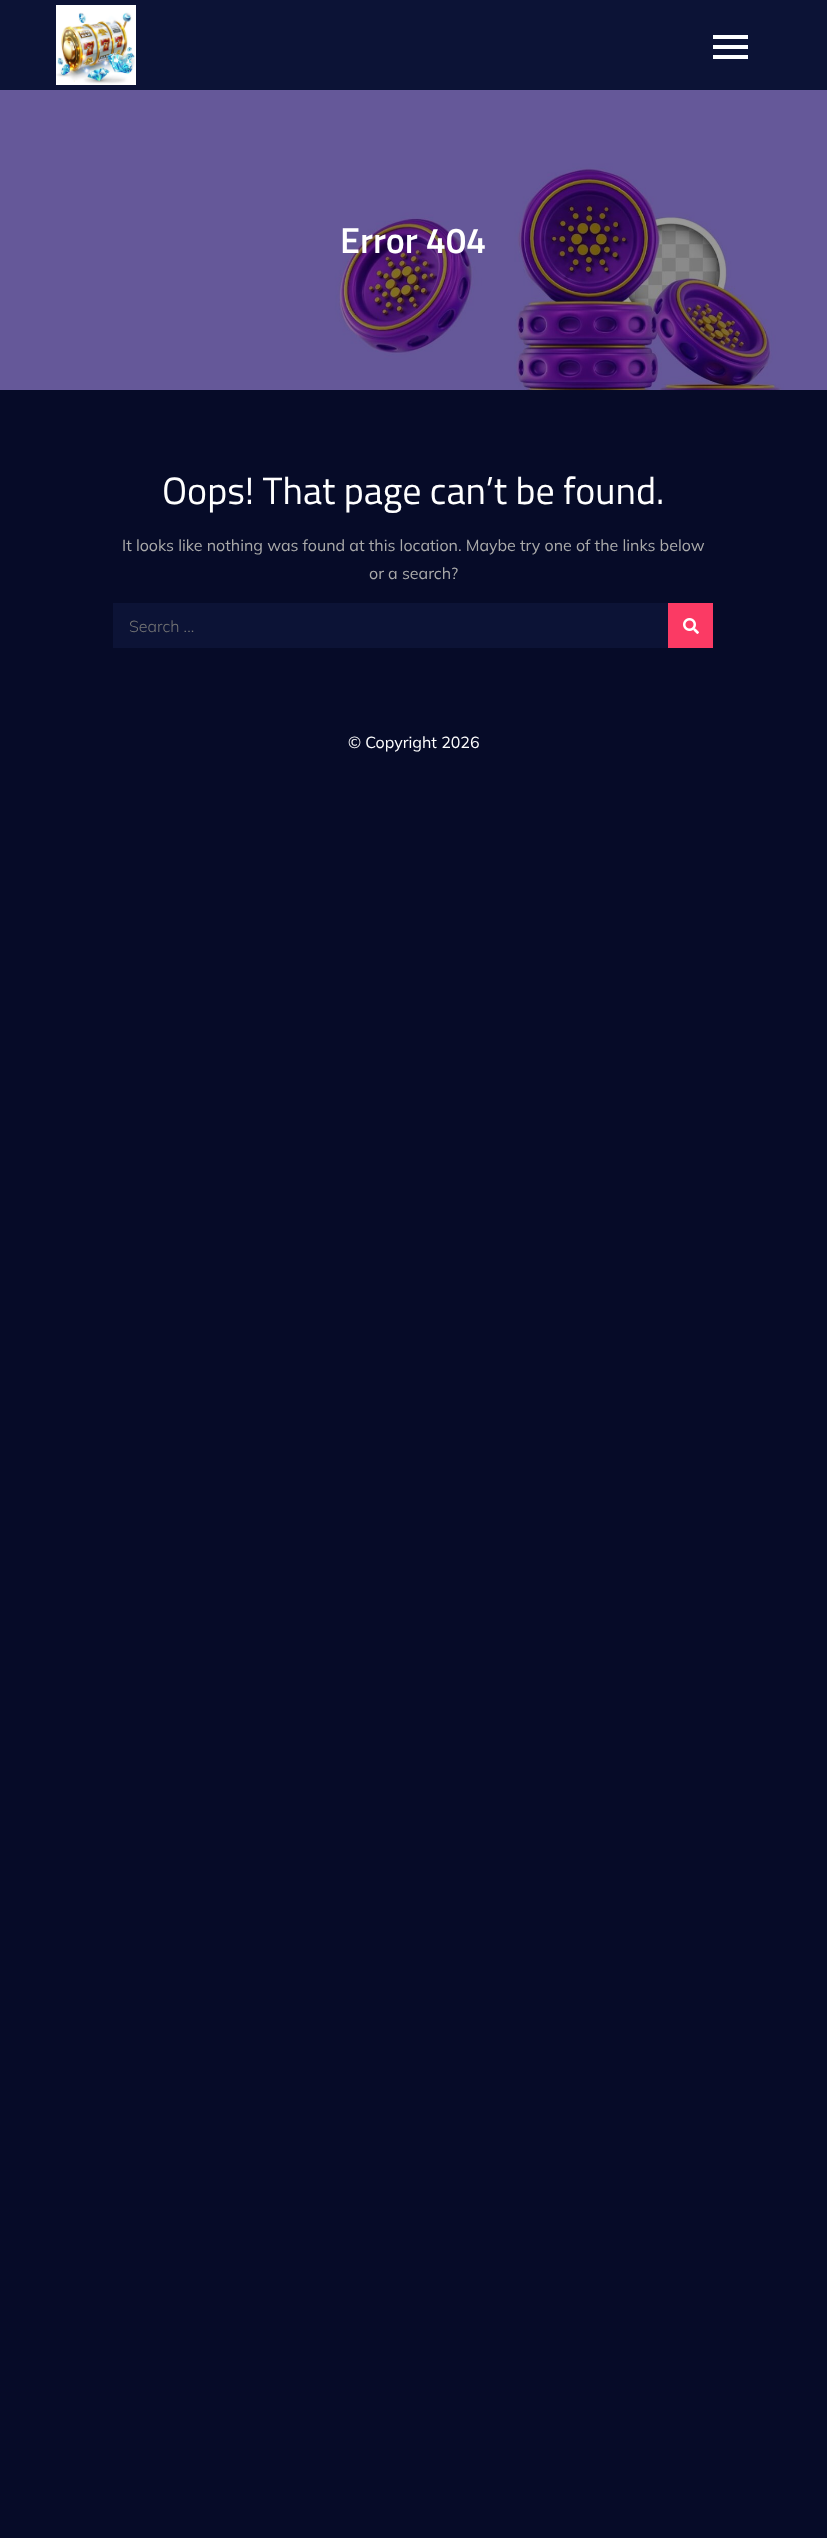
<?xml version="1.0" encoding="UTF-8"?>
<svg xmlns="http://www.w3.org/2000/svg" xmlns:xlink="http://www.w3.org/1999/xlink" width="827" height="2538">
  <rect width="100%" height="100%" fill="#060b28" />
  <rect width="827" height="90" fill="#0c1336" />
  <image x="56" y="5" width="80" height="80" xlink:href="image1.png" />
  <rect x="713" y="45" width="35" height="4" fill="#ffffff" />
  <rect x="713" y="35" width="35" height="4" fill="#ffffff" />
  <rect x="713" y="55" width="35" height="4" fill="#ffffff" />
  <image x="0" y="90" width="827" height="300" xlink:href="image2.png" />
  <rect x="113" y="603" width="555" height="45" fill="#0c1336" />
  <rect x="668" y="603" width="45" height="45" fill="#fb3a64" />
  <image x="683" y="618" width="16" height="16" xlink:href="image3.png" />
  <text x="340" y="253" style="font-family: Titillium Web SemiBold; font-size: 36px; font-weight: 600; fill: #ffffff">Error 404</text>
  <text x="162" y="504" style="font-family: Titillium Web; font-size: 38px; fill: #ffffff">Oops! That page can’t be found.</text>
  <text x="122" y="551" style="font-family: Mulish; font-size: 16px; fill: #aaaaaa">It looks like nothing was found at this location. Maybe try one of the links below</text>
  <text x="369" y="579" style="font-family: Mulish; font-size: 16px; fill: #aaaaaa">or a search?</text>
  <text x="129" y="632" style="font-family: Mulish; font-size: 16px; font-weight: 300; fill: #757575">Search ...</text>
  <text x="348" y="748" style="font-family: Mulish; font-size: 16px; fill: #ffffff">© Copyright 2026</text>
</svg>
